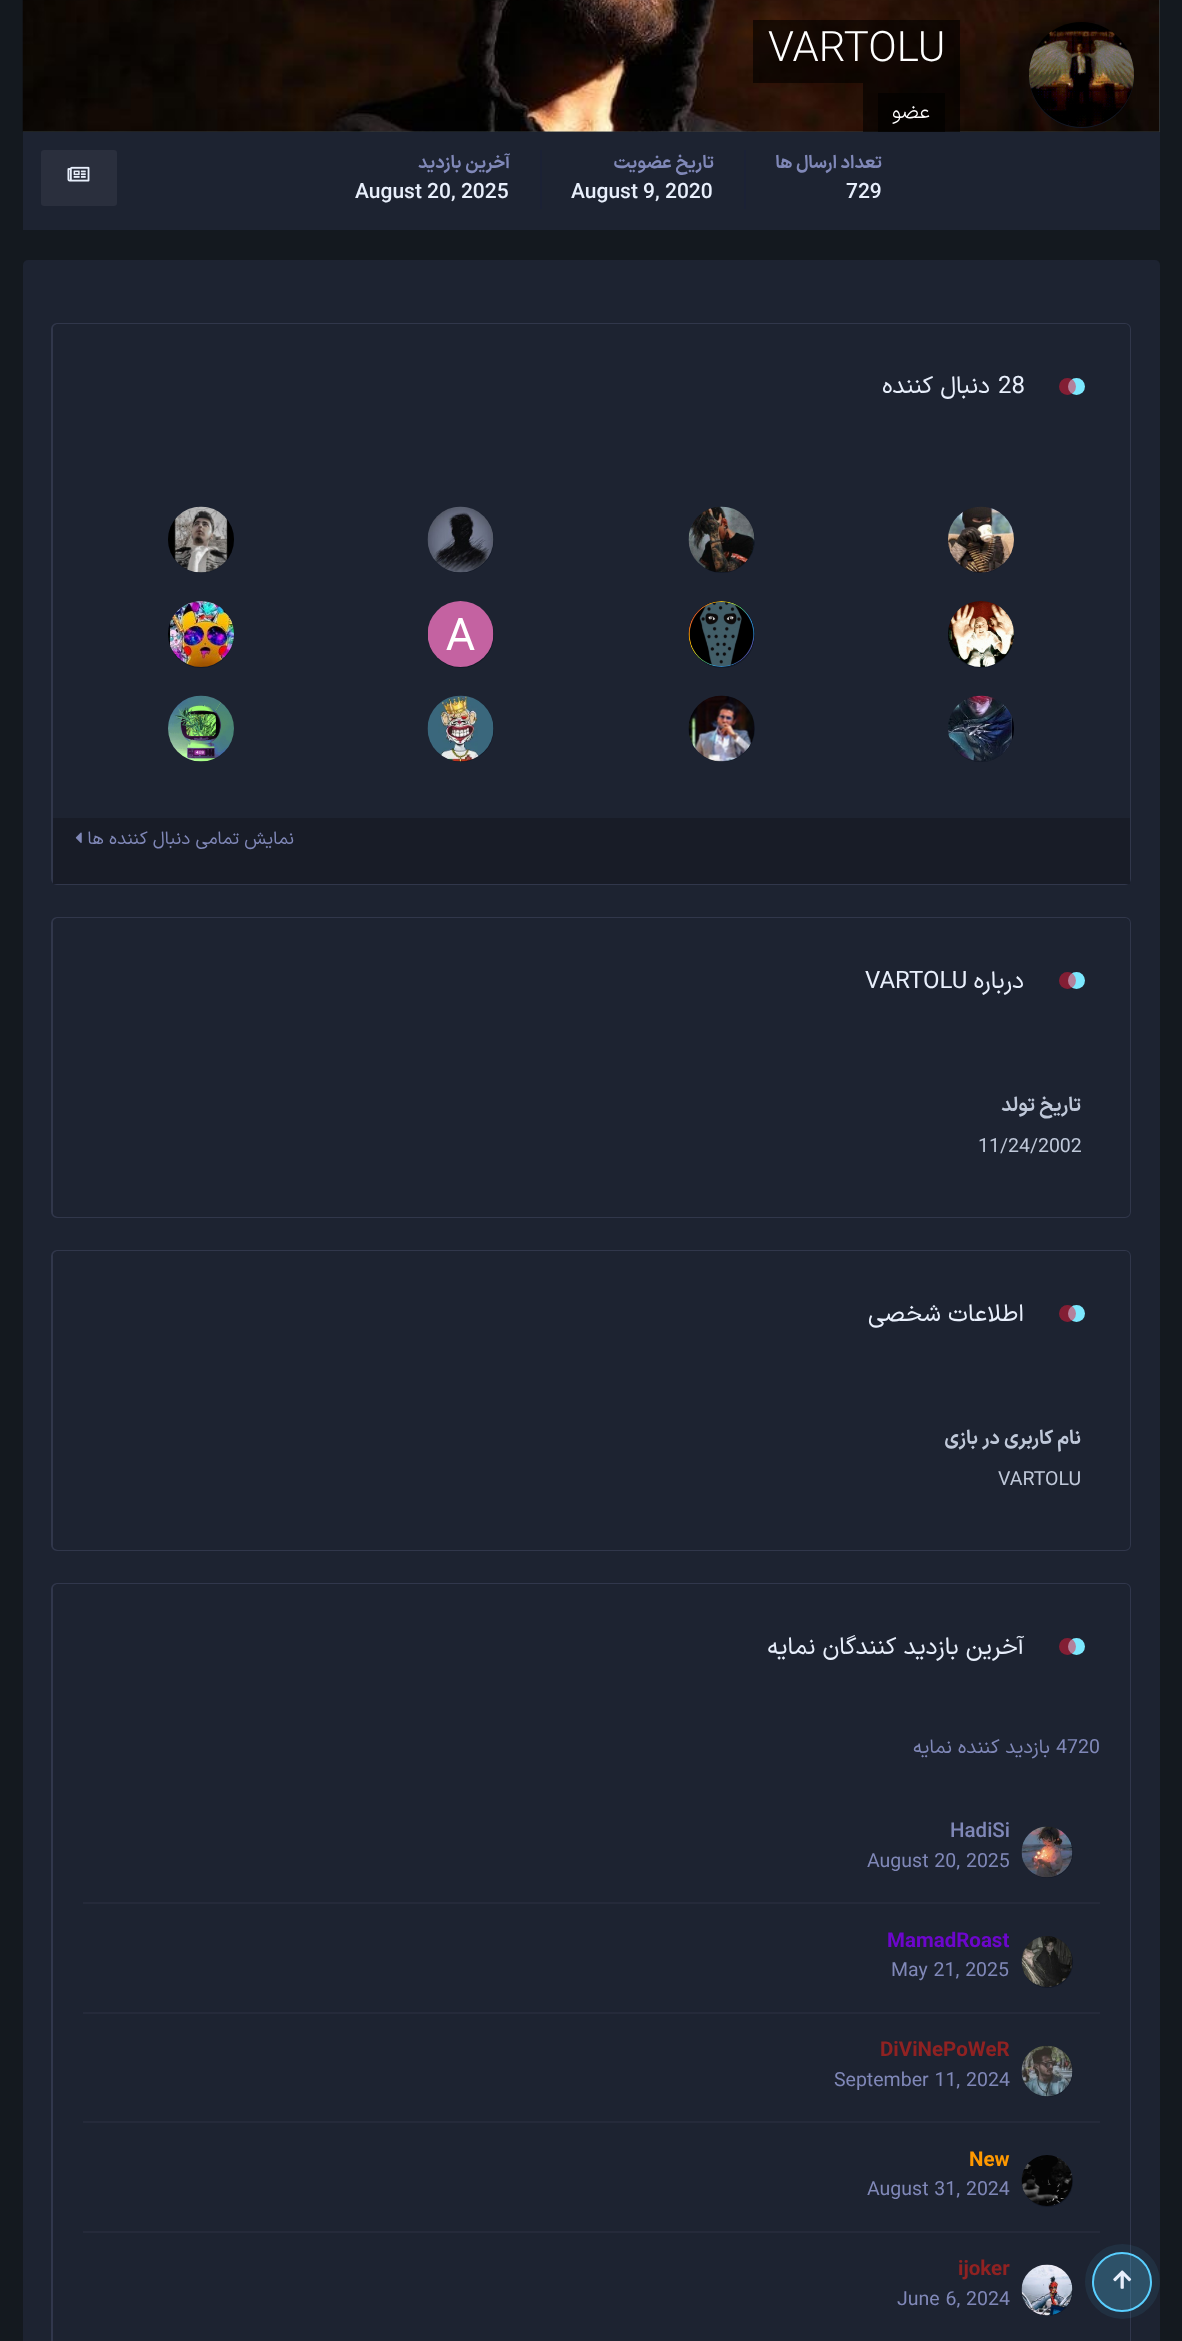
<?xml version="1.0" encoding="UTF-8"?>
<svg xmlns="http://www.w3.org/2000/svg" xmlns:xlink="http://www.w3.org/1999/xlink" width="1182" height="2341">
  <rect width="100%" height="100%" fill="#14191f" />
  <rect x="23" width="1137" height="132" fill="#353c41" />
  <image x="22" y="0" width="1138" height="132" xlink:href="image1.png" />
  <rect x="753" y="20" width="207" height="63" fill="#000000" fill-opacity="0.6" />
  <rect x="863" y="83" width="97" height="49" fill="#000000" fill-opacity="0.6" />
  <rect x="878" y="93" width="67" height="39" fill="#000000" fill-opacity="0.6" />
  <circle cx="1081.5" cy="75.5" r="52.5" fill="#141a28" />
  <image x="1029" y="22" width="105" height="105" xlink:href="image2.png" />
  <rect x="23" y="132" width="1137" height="98" fill="#1d2331" />
  <rect x="41" y="150" width="76" height="56" rx="3" fill="#2a2f3d" />
  <image x="67" y="166" width="23" height="16" xlink:href="image3.png" />
  <rect x="540" y="150" width="2" height="59" fill="#1b2135" />
  <rect x="744" y="150" width="2" height="59" fill="#1b2135" />
  <rect x="23" y="260" width="1137" height="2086" rx="5" fill="#1d2331" />
  <rect x="52" y="324" width="1078" height="560" rx="5" fill="none" stroke="#31374b" stroke-width="2" />
  <rect x="53" y="324" width="1077" height="560" rx="5" fill="#1d2331" />
  <circle cx="1076.5" cy="386.5" r="8.5" fill="#7ce8fe" />
  <circle cx="1067.5" cy="386.5" r="8.5" fill="#ea1a38" fill-opacity="0.5" />
  <circle cx="201" cy="540" r="33" fill="#141a28" />
  <image x="168" y="506" width="66" height="67" xlink:href="image4.png" />
  <circle cx="461" cy="540" r="33" fill="#141a28" />
  <image x="427" y="506" width="67" height="67" xlink:href="image5.png" />
  <circle cx="722" cy="540" r="33" fill="#141a28" />
  <image x="688" y="506" width="67" height="66" xlink:href="image6.png" />
  <circle cx="981" cy="540" r="33" fill="#141a28" />
  <image x="948" y="506" width="66" height="67" xlink:href="image7.png" />
  <circle cx="201" cy="635" r="33" fill="#141a28" />
  <image x="168" y="601" width="66" height="66" xlink:href="image8.png" />
  <circle cx="461" cy="635" r="33" fill="#141a28" />
  <image x="428" y="601" width="66" height="66" xlink:href="image9.png" />
  <circle cx="722" cy="635" r="33" fill="#141a28" />
  <image x="688" y="601" width="67" height="66" xlink:href="image10.png" />
  <circle cx="981" cy="635" r="33" fill="#141a28" />
  <image x="948" y="601" width="66" height="66" xlink:href="image11.png" />
  <circle cx="201" cy="729" r="33" fill="#141a28" />
  <image x="168" y="695" width="66" height="67" xlink:href="image12.png" />
  <circle cx="461" cy="729" r="33" fill="#141a28" />
  <image x="427" y="695" width="67" height="67" xlink:href="image13.png" />
  <circle cx="722" cy="729" r="33" fill="#141a28" />
  <image x="688" y="695" width="67" height="67" xlink:href="image14.png" />
  <circle cx="981" cy="729" r="33" fill="#141a28" />
  <image x="948" y="695" width="66" height="67" xlink:href="image15.png" />
  <rect x="53" y="818" width="1077" height="66" fill="#181c27" />
  <image x="75" y="832" width="7" height="11" xlink:href="image16.png" />
  <rect x="52" y="918" width="1078" height="299" rx="5" fill="none" stroke="#31374b" stroke-width="2" />
  <rect x="53" y="918" width="1077" height="299" rx="5" fill="#1d2331" />
  <circle cx="1076.5" cy="980.5" r="8.5" fill="#7ce8fe" />
  <circle cx="1067.5" cy="980.5" r="8.5" fill="#ea1a38" fill-opacity="0.5" />
  <rect x="52" y="1251" width="1078" height="299" rx="5" fill="none" stroke="#31374b" stroke-width="2" />
  <rect x="53" y="1251" width="1077" height="299" rx="5" fill="#1d2331" />
  <circle cx="1076.5" cy="1313.5" r="8.5" fill="#7ce8fe" />
  <circle cx="1067.5" cy="1313.5" r="8.5" fill="#ea1a38" fill-opacity="0.5" />
  <rect x="52" y="1584" width="1078" height="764" rx="5" fill="none" stroke="#31374c" stroke-width="2" />
  <rect x="53" y="1584" width="1077" height="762" rx="5" fill="#1d2331" />
  <circle cx="1076.5" cy="1646.5" r="8.5" fill="#7ce8fe" />
  <circle cx="1067.5" cy="1646.5" r="8.5" fill="#ea1a38" fill-opacity="0.5" />
  <rect x="83" y="1902" width="1017" height="2" fill="#252a3a" />
  <circle cx="1047.5" cy="1852.5" r="25.5" fill="#141a28" />
  <image x="1021" y="1826" width="52" height="52" xlink:href="image17.png" />
  <rect x="83" y="2012" width="1017" height="2" fill="#252a3a" />
  <circle cx="1047.5" cy="1962.5" r="25.5" fill="#141a28" />
  <image x="1021" y="1936" width="52" height="51" xlink:href="image18.png" />
  <rect x="83" y="2121" width="1017" height="2" fill="#252a3a" />
  <circle cx="1047.5" cy="2071.5" r="25.5" fill="#141a28" />
  <image x="1021" y="2045" width="52" height="52" xlink:href="image19.png" />
  <rect x="83" y="2231" width="1017" height="2" fill="#252a3a" />
  <circle cx="1047.5" cy="2181.5" r="25.5" fill="#141a28" />
  <image x="1021" y="2155" width="52" height="51" xlink:href="image20.png" />
  <circle cx="1047.5" cy="2290.5" r="25.5" fill="#141a28" />
  <image x="1021" y="2264" width="52" height="52" xlink:href="image21.png" />
  <circle cx="1122.5" cy="2281.5" r="33.5" fill="none" stroke="#59cfff" stroke-opacity="0.08" stroke-width="8" />
  <circle cx="1122" cy="2282" r="29" fill="#59cfff" fill-opacity="0.27" stroke="#59cfff" stroke-width="2" />
  <image x="1113" y="2270" width="19" height="19" xlink:href="image22.png" />
  <text x="768" y="61" style="font-family: Roboto; font-size: 42px; font-weight: 300; fill: #ffffff">VARTOLU</text>
  <text x="930" y="118" style="font-family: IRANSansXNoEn; font-size: 21px; font-weight: 300; direction: rtl; fill: #ffffff">عضو</text>
  <text x="510" y="168" style="font-family: IRANSansXNoEn; font-size: 18px; font-weight: bold; direction: rtl; fill: #8088b8">آخرین بازدید</text>
  <text x="355" y="198" style="font-family: Roboto; font-size: 21px; font-weight: 500; fill: #e8effc">August 20, 2025</text>
  <text x="714" y="168" style="font-family: IRANSansXNoEn; font-size: 18px; font-weight: bold; direction: rtl; fill: #8088b8">تاریخ عضویت</text>
  <text x="571" y="198" style="font-family: Roboto; font-size: 21px; font-weight: 500; fill: #e8effc">August 9, 2020</text>
  <text x="882" y="168" style="font-family: IRANSansXNoEn; font-size: 18px; font-weight: bold; direction: rtl; fill: #8088b8">تعداد ارسال ها</text>
  <text x="846" y="198" style="font-family: Roboto; font-size: 21px; font-weight: 500; fill: #e8effc">729</text>
  <text x="990" y="393" style="font-family: IRANSansXNoEn; font-size: 24px; direction: rtl; fill: #e8effc">دنبال کننده</text>
  <text x="998" y="393" style="font-family: Roboto; font-size: 24px; fill: #e8effc">28</text>
  <text x="294" y="844" style="font-family: IRANSansXNoEn; font-size: 18px; direction: rtl; fill: #8088b8">نمایش تمامی دنبال کننده ها</text>
  <text x="865" y="988" style="font-family: Roboto; font-size: 24px; fill: #e8effc">VARTOLU</text>
  <text x="1024" y="988" style="font-family: IRANSansXNoEn; font-size: 24px; direction: rtl; fill: #e8effc">درباره</text>
  <text x="1081" y="1111" style="font-family: IRANSansXNoEn; font-size: 19.5px; font-weight: bold; direction: rtl; fill: #bfc8d9">تاریخ تولد</text>
  <text x="978" y="1152" style="font-family: Roboto; font-size: 19.5px; fill: #bfc8d9">11/24/2002</text>
  <text x="1024" y="1321" style="font-family: IRANSansXNoEn; font-size: 24px; direction: rtl; fill: #e8effc">اطلاعات شخصی</text>
  <text x="1081" y="1444" style="font-family: IRANSansXNoEn; font-size: 19.5px; font-weight: bold; direction: rtl; fill: #bfc8d9">نام کاربری در بازی</text>
  <text x="998" y="1485" style="font-family: Roboto; font-size: 19.5px; fill: #bfc8d9">VARTOLU</text>
  <text x="1024" y="1654" style="font-family: IRANSansXNoEn; font-size: 24px; direction: rtl; fill: #e8effc">آخرین بازدید کنندگان نمایه</text>
  <text x="1050" y="1753" style="font-family: IRANSansXNoEn; font-size: 19.5px; direction: rtl; fill: #8088b8">بازدید کننده نمایه</text>
  <text x="1056" y="1753" style="font-family: Roboto; font-size: 19.5px; fill: #8088b8">4720</text>
  <text x="950" y="1837" style="font-family: Roboto; font-size: 20.5px; font-weight: 500; fill: #8088b8">HadiSi</text>
  <text x="867" y="1867" word-spacing="1" style="font-family: Roboto; font-size: 19.5px; fill: #8088b8">August 20, 2025</text>
  <text x="887" y="1947" style="font-family: Roboto; font-size: 20.5px; font-weight: bold; fill: #6d06cc">MamadRoast</text>
  <text x="891" y="1976" word-spacing="1" style="font-family: Roboto; font-size: 19.5px; fill: #8088b8">May 21, 2025</text>
  <text x="880" y="2056" style="font-family: Roboto; font-size: 20.5px; font-weight: bold; fill: #902222">DiViNePoWeR</text>
  <text x="834" y="2086" word-spacing="1" style="font-family: Roboto; font-size: 19.5px; fill: #8088b8">September 11, 2024</text>
  <text x="969" y="2166" style="font-family: Roboto; font-size: 20.5px; font-weight: bold; fill: #ff9900">New</text>
  <text x="867" y="2195" word-spacing="1" style="font-family: Roboto; font-size: 19.5px; fill: #8088b8">August 31, 2024</text>
  <text x="958" y="2275" style="font-family: Roboto; font-size: 20.5px; font-weight: bold; fill: #902222">ijoker</text>
  <text x="897" y="2305" word-spacing="1" style="font-family: Roboto; font-size: 19.5px; fill: #8088b8">June 6, 2024</text>
</svg>
